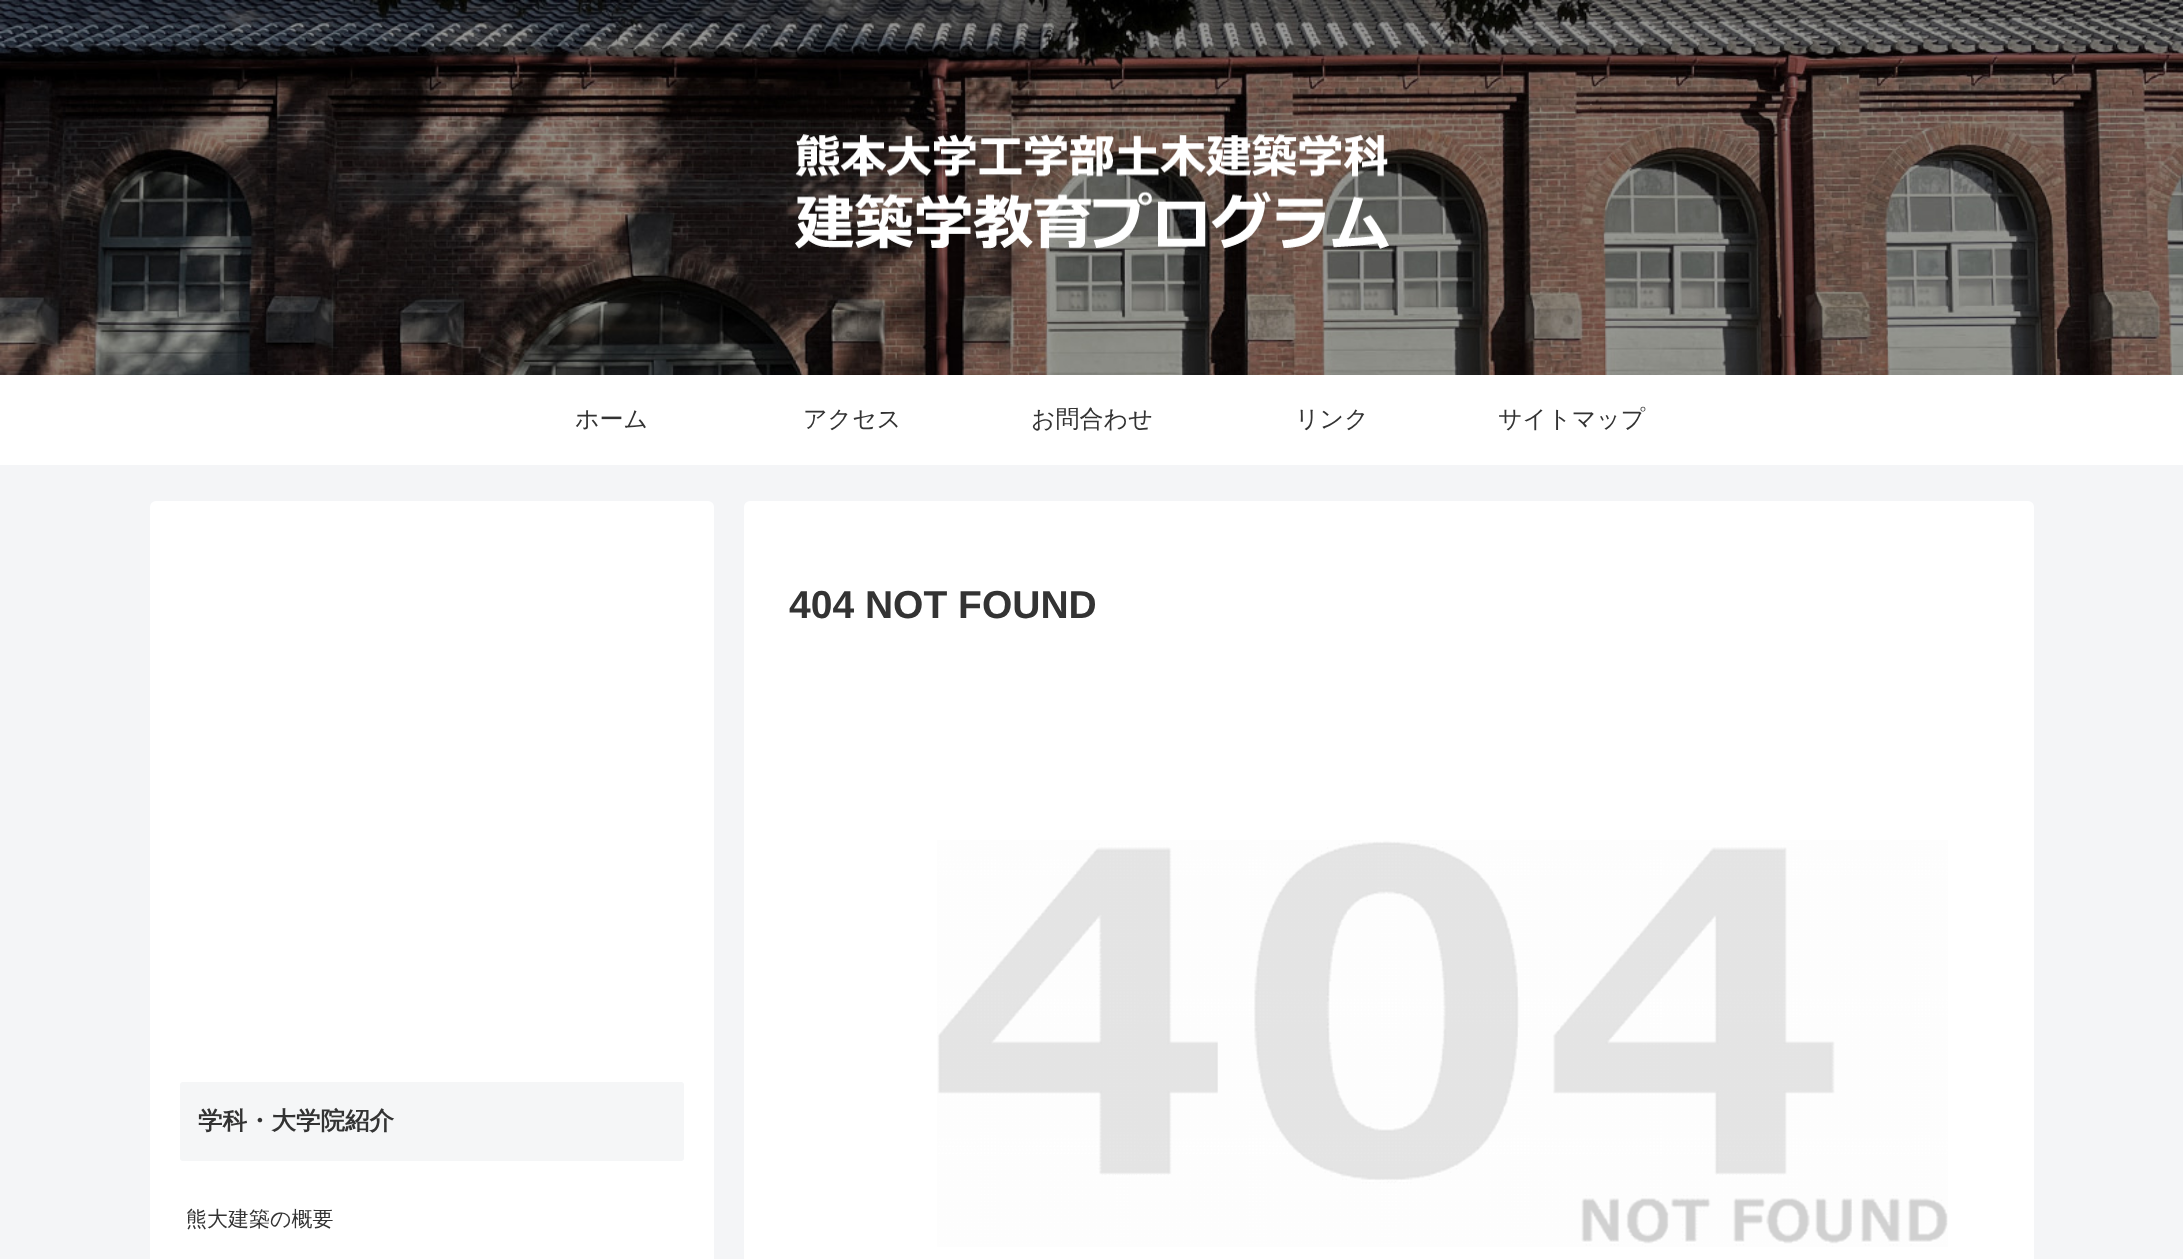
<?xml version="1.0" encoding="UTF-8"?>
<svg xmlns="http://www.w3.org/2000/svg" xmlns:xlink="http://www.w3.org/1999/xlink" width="2183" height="1259">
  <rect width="100%" height="100%" fill="#f4f5f7" />
  <rect y="375" width="2183" height="90" fill="#ffffff" />
  <image x="0" y="0" width="2183" height="375" xlink:href="image1.png" />
  <image x="795" y="134" width="594" height="115" xlink:href="image2.png" />
  <rect x="744" y="501" width="1290" height="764" rx="6" fill="#ffffff" />
  <image x="937" y="840" width="1011" height="407" xlink:href="image3.png" />
  <rect x="150" y="501" width="564" height="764" rx="6" fill="#ffffff" />
  <rect x="180" y="1082" width="504" height="79" rx="3" fill="#f5f6f7" />
  <text x="575" y="427" style="font-family: WenQuanYi Zen Hei; font-size: 24px; font-weight: 500; fill: #333333">ホーム</text>
  <text x="803" y="427" style="font-family: WenQuanYi Zen Hei; font-size: 24px; font-weight: 500; fill: #333333">アクセス</text>
  <text x="1031" y="427" style="font-family: WenQuanYi Zen Hei; font-size: 24px; font-weight: 500; fill: #333333">お問合わせ</text>
  <text x="1295" y="427" style="font-family: WenQuanYi Zen Hei; font-size: 24px; font-weight: 500; fill: #333333">リンク</text>
  <text x="1498" y="427" style="font-family: WenQuanYi Zen Hei; font-size: 24px; font-weight: 500; fill: #333333">サイトマップ</text>
  <text x="789" y="618" style="font-family: Liberation Sans; font-size: 39px; font-weight: bold; fill: #333333">404 NOT FOUND</text>
  <text x="198" y="1129" style="font-family: WenQuanYi Zen Hei; font-size: 24.5px; font-weight: bold; fill: #333333">学科・大学院紹介</text>
  <text x="186" y="1226" style="font-family: WenQuanYi Zen Hei; font-size: 21px; font-weight: 500; fill: #333333">熊大建築の概要</text>
</svg>
